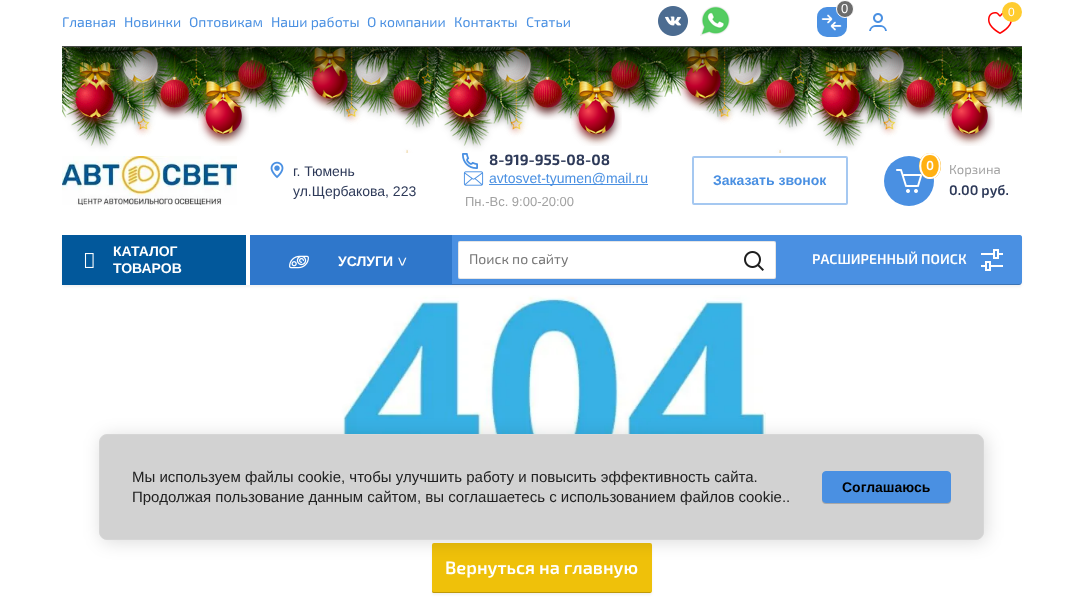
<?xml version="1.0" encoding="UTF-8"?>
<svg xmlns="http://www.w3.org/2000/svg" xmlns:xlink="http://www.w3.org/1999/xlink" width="1083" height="604">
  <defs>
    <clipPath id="clip1"><rect x="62" y="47" width="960" height="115" /></clipPath>
  </defs>
  <rect width="100%" height="100%" fill="#ffffff" />
  <image x="62" y="47" width="960" height="106" xlink:href="image1.png" />
  <image x="68" y="47" width="52" height="82" xlink:href="image3.png" />
  <image x="62" y="47" width="25" height="71" xlink:href="image2.png" />
  <image x="116" y="47" width="49" height="47" xlink:href="image5.png" />
  <image x="87" y="47" width="61" height="27" xlink:href="image4.png" />
  <image x="198" y="47" width="51" height="99" xlink:href="image6.png" />
  <image x="232" y="47" width="41" height="54" xlink:href="image7.png" />
  <image x="239" y="47" width="28" height="31" xlink:href="image8.png" />
  <image x="305" y="47" width="49" height="64" xlink:href="image10.png" />
  <image x="267" y="47" width="50" height="50" xlink:href="image9.png" />
  <image x="349" y="47" width="46" height="49" xlink:href="image11.png" />
  <image x="153" y="56" width="42" height="64" xlink:href="image12.png" />
  <image x="387" y="57" width="41" height="63" xlink:href="image15.png" />
  <image x="351" y="47" width="78" height="28" xlink:href="image13.png" />
  <image x="429" y="47" width="6" height="69" xlink:href="image14.png" />
  <image x="441" y="47" width="52" height="82" xlink:href="image3.png" />
  <image x="435" y="47" width="25" height="71" xlink:href="image2.png" />
  <image x="489" y="47" width="49" height="47" xlink:href="image5.png" />
  <image x="460" y="47" width="61" height="27" xlink:href="image4.png" />
  <image x="571" y="47" width="51" height="99" xlink:href="image6.png" />
  <image x="605" y="47" width="41" height="54" xlink:href="image7.png" />
  <image x="612" y="47" width="28" height="31" xlink:href="image8.png" />
  <image x="678" y="47" width="49" height="64" xlink:href="image10.png" />
  <image x="640" y="47" width="50" height="50" xlink:href="image9.png" />
  <image x="722" y="47" width="46" height="49" xlink:href="image11.png" />
  <image x="526" y="56" width="42" height="64" xlink:href="image12.png" />
  <image x="760" y="57" width="41" height="63" xlink:href="image15.png" />
  <image x="724" y="47" width="78" height="28" xlink:href="image13.png" />
  <image x="802" y="47" width="6" height="69" xlink:href="image14.png" />
  <image x="814" y="47" width="52" height="82" xlink:href="image3.png" />
  <image x="808" y="47" width="25" height="71" xlink:href="image2.png" />
  <image x="862" y="47" width="49" height="47" xlink:href="image5.png" />
  <image x="833" y="47" width="61" height="27" xlink:href="image4.png" />
  <image x="944" y="47" width="51" height="99" xlink:href="image6.png" />
  <image x="978" y="47" width="41" height="54" xlink:href="image7.png" />
  <image x="899" y="56" width="42" height="64" xlink:href="image12.png" />
  <image x="985" y="47" width="28" height="31" xlink:href="image8.png" />
  <image x="1013" y="47" width="9" height="35" xlink:href="image16.png" />
  <rect x="62" y="46" width="960" height="1" fill="#4a4a4a" />
  <image x="658" y="6" width="30" height="30" xlink:href="image17.png" />
  <image x="700" y="6" width="30" height="30" xlink:href="image18.png" />
  <rect x="817" y="7" width="30" height="30" rx="10" fill="#4a90e2" />
  <image x="821" y="14" width="21" height="17" xlink:href="image19.png" />
  <circle cx="845" cy="9" r="8.5" fill="#6c6c6c" stroke="#ffffff" />
  <image x="988" y="12" width="24" height="22" xlink:href="image20.png" />
  <circle cx="1012" cy="12" r="10" fill="#ffcc2f" />
  <image x="869" y="13" width="18" height="18" xlink:href="image21.png" />
  <g clip-path="url(#clip1)">
    <rect x="62" y="-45" width="960" height="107" fill="#000000" fill-opacity="0.75" filter="blur(15px)" />
  </g>
  <image x="62" y="156" width="175" height="49" xlink:href="image22.png" />
  <image x="270" y="161" width="14" height="18" xlink:href="image23.png" />
  <image x="462" y="153" width="16" height="16" xlink:href="image24.png" />
  <image x="463" y="171" width="21" height="15" xlink:href="image25.png" />
  <rect x="489" y="184" width="159" height="1" fill="#4a90e2" />
  <rect x="693" y="157" width="154" height="47" rx="1" fill="none" stroke="#a5c8f1" stroke-width="2" />
  <circle cx="909" cy="181" r="25" fill="#4a90e2" />
  <image x="896" y="169" width="26" height="24" xlink:href="image26.png" />
  <ellipse cx="930" cy="166" rx="11" ry="13" fill="#ffb012" />
  <path d="M 930 154 c 13 0 13 24 0 24 c -13 0 -13 -24 0 -24 z" fill="none" stroke="#ffffff" stroke-width="2" />
  <rect x="62" y="237" width="960" height="50" rx="3" fill="#000000" fill-opacity="0.05" filter="blur(1px)" />
  <path d="M 64 235 h 956 c 1 0 2 1 2 2 v 45 c 0 1.5 -1.5 3 -3 3 h -954 c -1.5 0 -3 -1.5 -3 -3 v -45 c 0 -1 1 -2 2 -2 z" fill="#4a90e2" />
  <path d="M 62 281 c 0 2 1 4 3 4 h 954 c 2 0 3 -2 3 -4 c 0 2 -1 3 -3 3 h -954 c -2 0 -3 -1 -3 -3 z" fill="#000000" fill-opacity="0.2" />
  <rect x="246" y="235" width="4" height="50" fill="#ffffff" />
  <rect x="62" y="235" width="184" height="50" fill="#02589b" />
  <image x="84" y="253" width="10" height="15" xlink:href="image27.png" />
  <rect x="250" y="235" width="202" height="50" fill="#2f77cb" />
  <image x="289" y="255" width="20" height="14" xlink:href="image28.png" />
  <rect x="458" y="241" width="318" height="38" rx="2" fill="#ffffff" />
  <rect x="458.5" y="241.5" width="317" height="37" rx="1.5" fill="none" stroke="#000000" stroke-opacity="0.1" />
  <image x="744" y="251" width="20" height="20" xlink:href="image29.png" />
  <image x="981" y="249" width="22" height="22" xlink:href="image30.png" />
  <image x="62" y="295" width="704" height="191" xlink:href="image31.png" />
  <rect x="432" y="545" width="220" height="50" rx="2" fill="#000000" fill-opacity="0.05" filter="blur(1px)" />
  <rect x="432" y="543" width="220" height="50" rx="2" fill="#efc10a" />
  <path d="M 432 590 c 0 1 0 3 2 3 h 216 l 1 -1 l 1 -2 c 0 1 -1 2 -2 2 h -216 c -1 0 -2 -1 -2 -2 z" fill="#be9908" />
  <rect x="101" y="436" width="885" height="106" rx="8" fill="#000000" fill-opacity="0.14" filter="blur(9px)" />
  <rect x="99.5" y="434.5" width="884" height="105" rx="7.5" fill="#d2d2d2" stroke="#d6d6d6" />
  <rect x="822" y="472" width="129" height="32" rx="4" fill="#000000" fill-opacity="0.2" filter="blur(0.5px)" />
  <rect x="822.5" y="471.5" width="128" height="31" rx="3.5" fill="#4a90e2" stroke="#4a90e2" />
  <text x="841" y="13" style="font-family: Liberation Sans; font-size: 13px; fill: #ffffff">0</text>
  <text x="1008" y="16" style="font-family: Liberation Sans; font-size: 12px; fill: #ffffff">0</text>
  <text x="62" y="27" style="font-family: 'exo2'; font-size: 14px; fill: #4a90e2">Главная</text>
  <text x="124" y="27" style="font-family: 'exo2'; font-size: 14px; fill: #4a90e2">Новинки</text>
  <text x="189" y="27" style="font-family: 'exo2'; font-size: 14px; fill: #4a90e2">Оптовикам</text>
  <text x="271" y="27" style="font-family: 'exo2'; font-size: 14px; fill: #4a90e2">Наши работы</text>
  <text x="367" y="27" style="font-family: 'exo2'; font-size: 14px; fill: #4a90e2">О компании</text>
  <text x="454" y="27" style="font-family: 'exo2'; font-size: 14px; fill: #4a90e2">Контакты</text>
  <text x="526" y="27" style="font-family: 'exo2'; font-size: 14px; fill: #4a90e2">Статьи</text>
  <text x="293" y="176" style="font-family: Liberation Sans; font-size: 14px; fill: #2e3a59">г. Тюмень</text>
  <text x="293" y="196" style="font-family: Liberation Sans; font-size: 14px; fill: #2e3a59">ул.Щербакова, 223</text>
  <text x="489" y="165" style="font-family: 'exo2'; font-size: 15px; font-weight: bold; fill: #2e3a59">8-919-955-08-08</text>
  <text x="489" y="183" style="font-family: Liberation Sans; font-size: 14px; fill: #4a90e2">avtosvet-tyumen@mail.ru</text>
  <text x="465" y="206" style="font-family: Liberation Sans; font-size: 13px; fill: #a2a2a2">Пн.-Вс. 9:00-20:00</text>
  <text x="713" y="185" style="font-family: Liberation Sans; font-size: 14px; font-weight: bold; fill: #4a90e2">Заказать звонок</text>
  <text x="926" y="170" style="font-family: 'Exo 2'; font-size: 13px; font-weight: 600; fill: #ffffff">0</text>
  <text x="949" y="174" style="font-family: 'exo2'; font-size: 13px; fill: #a2a2a2">Корзина</text>
  <text x="949" y="195" style="font-family: 'Exo 2'; font-size: 14px; font-weight: 600; fill: #2e3a59">0.00 руб.</text>
  <text x="113" y="256" style="font-family: Liberation Sans; font-size: 14px; font-weight: bold; fill: #ffffff">КАТАЛОГ</text>
  <text x="113" y="273" style="font-family: Liberation Sans; font-size: 14px; font-weight: bold; fill: #ffffff">ТОВАРОВ</text>
  <text x="338" y="266" style="font-family: Liberation Sans; font-size: 14px; font-weight: bold; fill: #ffffff">УСЛУГИ</text>
  <text x="397" y="257" transform="rotate(90 397 257)" style="font-family: Liberation Sans; font-size: 16px; fill: #ffffff">&gt;</text>
  <text x="469" y="264" style="font-family: 'exo2'; font-size: 14px; fill: #757575">Поиск по сайту</text>
  <text x="812" y="264" style="font-family: 'Exo 2'; font-size: 14px; font-weight: 600; fill: #ffffff">РАСШИРЕННЫЙ ПОИСК</text>
  <text x="445" y="574" style="font-family: 'Exo 2'; font-size: 18px; font-weight: 600; fill: #ffffff">Вернуться на главную</text>
  <text x="132" y="482" style="font-family: Liberation Sans; font-size: 15px; fill: #212121">Мы используем файлы cookie, чтобы улучшить работу и повысить эффективность сайта.</text>
  <text x="132" y="502" style="font-family: Liberation Sans; font-size: 15px; fill: #212121">Продолжая пользование данным сайтом, вы соглашаетесь с использованием файлов cookie..</text>
  <text x="842" y="492" style="font-family: Liberation Sans; font-size: 14px; font-weight: bold; fill: #000000">Соглашаюсь</text>
</svg>
